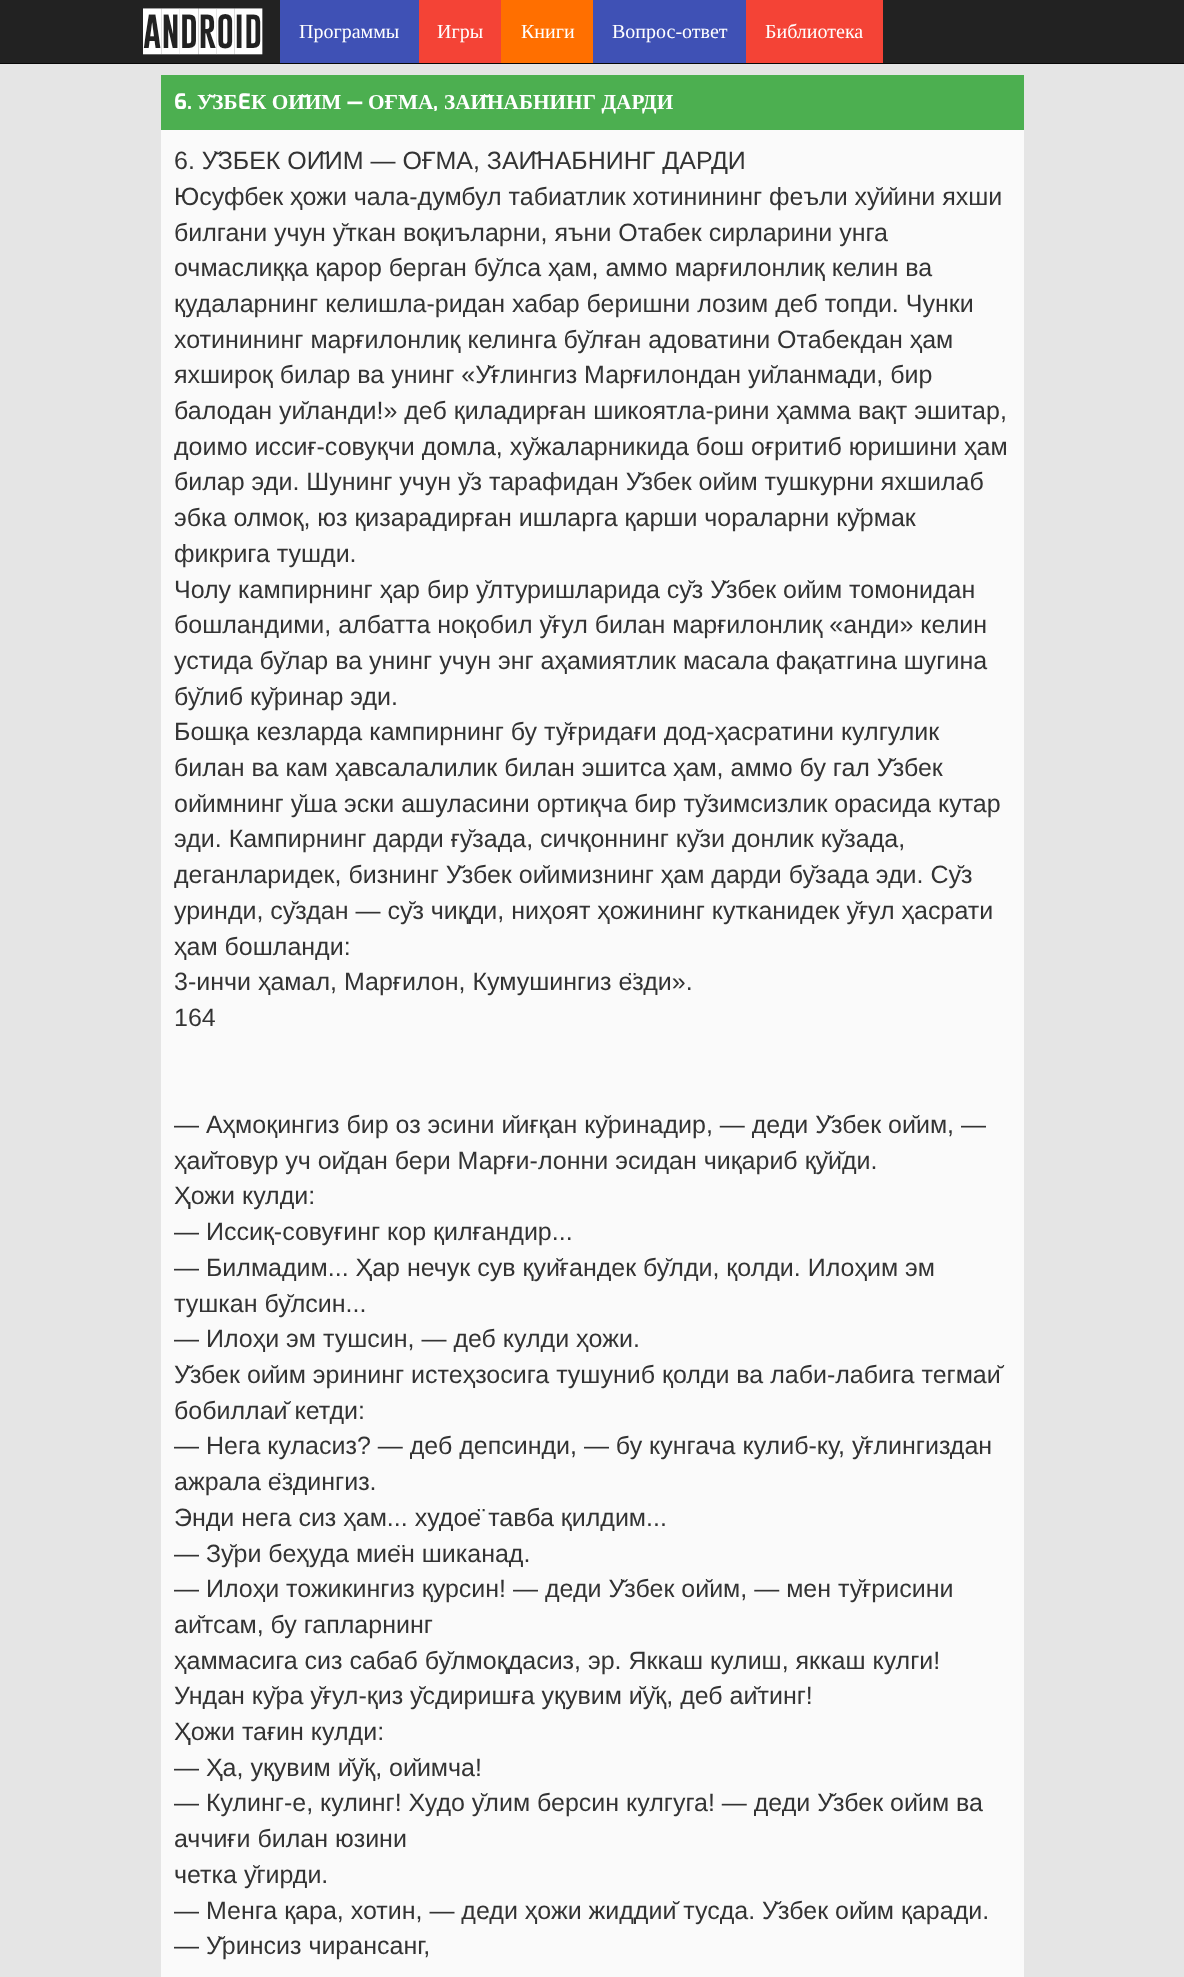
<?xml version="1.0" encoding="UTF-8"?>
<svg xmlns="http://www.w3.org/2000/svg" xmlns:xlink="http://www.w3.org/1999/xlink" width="1184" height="1977">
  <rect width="100%" height="100%" fill="#e5e5e5" />
  <rect width="1184" height="63" fill="#222222" />
  <rect y="63" width="1184" height="1" fill="#080808" />
  <rect x="280" width="139" height="63" fill="#3f51b5" />
  <rect x="419" width="82" height="63" fill="#f44336" />
  <rect x="501" width="92" height="63" fill="#ff6f00" />
  <rect x="593" width="153" height="63" fill="#3f51b5" />
  <rect x="746" width="137" height="63" fill="#f44336" />
  <rect x="161" y="75" width="863" height="55" fill="#4caf50" />
  <rect x="161" y="130" width="863" height="1847" fill="#fafafa" />
  <text x="143" y="48" style="font-family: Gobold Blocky; font-size: 45px; font-weight: bold; fill: #ffffff">android</text>
  <text x="299" y="38" style="font-family: Liberation Serif; font-size: 20px; fill: #ffffff">Программы</text>
  <text x="437" y="38" style="font-family: Liberation Serif; font-size: 20px; fill: #ffffff">Игры</text>
  <text x="521" y="38" style="font-family: Liberation Serif; font-size: 20px; fill: #ffffff">Книги</text>
  <text x="612" y="38" style="font-family: Liberation Serif; font-size: 20px; fill: #ffffff">Вопрос-ответ</text>
  <text x="765" y="38" style="font-family: Liberation Serif; font-size: 20px; fill: #ffffff">Библиотека</text>
  <text x="174" y="109" style="font-family: Exo; font-size: 21.25px; font-weight: bold; fill: #ffffff">6.</text>
  <text x="197" y="109" style="font-family: Liberation Serif; font-size: 21.25px; font-weight: bold; fill: #ffffff">ЎЗБ</text>
  <text x="238" y="109" style="font-family: Exo; font-size: 21.25px; font-weight: bold; fill: #ffffff">E</text>
  <text x="251" y="109" style="font-family: Liberation Serif; font-size: 21.25px; font-weight: bold; fill: #ffffff">К ОЙИМ</text>
  <text x="347" y="109" style="font-family: Exo; font-size: 21.25px; font-weight: bold; fill: #ffffff">—</text>
  <text x="368" y="109" style="font-family: Liberation Serif; font-size: 21.25px; font-weight: bold; fill: #ffffff">ОҒМА</text>
  <text x="444" y="109" style="font-family: Liberation Serif; font-size: 21.25px; font-weight: bold; fill: #ffffff">ЗАЙНАБНИНГ ДАРДИ</text>
  <text x="433" y="109" style="font-family: Exo; font-size: 21.25px; font-weight: bold; fill: #ffffff">,</text>
  <text x="174" y="169" style="font-family: Liberation Sans; font-size: 25px; fill: #333333">6. ЎЗБEК ОЙИМ — ОҒМА, ЗАЙНАБНИНГ ДАРДИ</text>
  <text x="174" y="205" style="font-family: Liberation Sans; font-size: 25px; fill: #333333">Юсуфбек ҳожи чала-думбул табиатлик хотинининг феъли хўйини яхши</text>
  <text x="174" y="241" style="font-family: Liberation Sans; font-size: 25px; fill: #333333">билгани учун ўткан воқиъларни, яъни Отабек сирларини унга</text>
  <text x="174" y="276" style="font-family: Liberation Sans; font-size: 25px; fill: #333333">очмаслиққа қарор берган бўлса ҳам, аммо марғилонлиқ келин ва</text>
  <text x="174" y="312" style="font-family: Liberation Sans; font-size: 25px; fill: #333333">қудаларнинг келишла-ридан хабар беришни лозим деб топди. Чунки</text>
  <text x="174" y="348" style="font-family: Liberation Sans; font-size: 25px; fill: #333333">хотинининг марғилонлиқ келинга бўлған адоватини Отабекдан ҳам</text>
  <text x="174" y="383" style="font-family: Liberation Sans; font-size: 25px; fill: #333333">яхшироқ билар ва унинг «Ўғлингиз Марғилондан уйланмади, бир</text>
  <text x="174" y="419" style="font-family: Liberation Sans; font-size: 25px; fill: #333333">балодан уйланди!» деб қиладирған шикоятла-рини ҳамма вақт эшитар,</text>
  <text x="174" y="455" style="font-family: Liberation Sans; font-size: 25px; fill: #333333">доимо иссиғ-совуқчи домла, хўжаларникида бош оғритиб юришини ҳам</text>
  <text x="174" y="490" style="font-family: Liberation Sans; font-size: 25px; fill: #333333">билар эди. Шунинг учун ўз тарафидан Ўзбек ойим тушкурни яхшилаб</text>
  <text x="174" y="526" style="font-family: Liberation Sans; font-size: 25px; fill: #333333">эбка олмоқ, юз қизарадирған ишларга қарши чораларни кўрмак</text>
  <text x="174" y="562" style="font-family: Liberation Sans; font-size: 25px; fill: #333333">фикрига тушди.</text>
  <text x="174" y="598" style="font-family: Liberation Sans; font-size: 25px; fill: #333333">Чолу кампирнинг ҳар бир ўлтуришларида сўз Ўзбек ойим томонидан</text>
  <text x="174" y="633" style="font-family: Liberation Sans; font-size: 25px; fill: #333333">бошландими, албатта ноқобил ўғул билан марғилонлиқ «анди» келин</text>
  <text x="174" y="669" style="font-family: Liberation Sans; font-size: 25px; fill: #333333">устида бўлар ва унинг учун энг аҳамиятлик масала фақатгина шугина</text>
  <text x="174" y="705" style="font-family: Liberation Sans; font-size: 25px; fill: #333333">бўлиб кўринар эди.</text>
  <text x="174" y="740" style="font-family: Liberation Sans; font-size: 25px; fill: #333333">Бошқа кезларда кампирнинг бу тўғридағи дод-ҳасратини кулгулик</text>
  <text x="174" y="776" style="font-family: Liberation Sans; font-size: 25px; fill: #333333">билан ва кам ҳавсалалилик билан эшитса ҳам, аммо бу гал Ўзбек</text>
  <text x="174" y="812" style="font-family: Liberation Sans; font-size: 25px; fill: #333333">ойимнинг ўша эски ашуласини ортиқча бир тўзимсизлик орасида кутар</text>
  <text x="174" y="847" style="font-family: Liberation Sans; font-size: 25px; fill: #333333">эди. Кампирнинг дарди ғўзада, сичқоннинг кўзи донлик кўзада,</text>
  <text x="174" y="883" style="font-family: Liberation Sans; font-size: 25px; fill: #333333">деганларидек, бизнинг Ўзбек ойимизнинг ҳам дарди бўзада эди. Сўз</text>
  <text x="174" y="919" style="font-family: Liberation Sans; font-size: 25px; fill: #333333">уринди, сўздан — сўз чиқди, ниҳоят ҳожининг кутканидек ўғул ҳасрати</text>
  <text x="174" y="955" style="font-family: Liberation Sans; font-size: 25px; fill: #333333">ҳам бошланди:</text>
  <text x="174" y="990" style="font-family: Liberation Sans; font-size: 25px; fill: #333333">3-инчи ҳамал, Марғилон, Кумушингиз ёзди».</text>
  <text x="174" y="1026" style="font-family: Liberation Sans; font-size: 25px; fill: #333333">164</text>
  <text x="174" y="1133" style="font-family: Liberation Sans; font-size: 25px; fill: #333333">— Аҳмоқингиз бир оз эсини йиғқан кўринадир, — деди Ўзбек ойим, —</text>
  <text x="174" y="1169" style="font-family: Liberation Sans; font-size: 25px; fill: #333333">ҳайтовур уч ойдан бери Марғи-лонни эсидан чиқариб қўйди.</text>
  <text x="174" y="1204" style="font-family: Liberation Sans; font-size: 25px; fill: #333333">Ҳожи кулди:</text>
  <text x="174" y="1240" style="font-family: Liberation Sans; font-size: 25px; fill: #333333">— Иссиқ-совуғинг кор қилғандир...</text>
  <text x="174" y="1276" style="font-family: Liberation Sans; font-size: 25px; fill: #333333">— Билмадим... Ҳар нечук сув қуйғандек бўлди, қолди. Илоҳим эм</text>
  <text x="174" y="1312" style="font-family: Liberation Sans; font-size: 25px; fill: #333333">тушкан бўлсин...</text>
  <text x="174" y="1347" style="font-family: Liberation Sans; font-size: 25px; fill: #333333">— Илоҳи эм тушсин, — деб кулди ҳожи.</text>
  <text x="174" y="1383" style="font-family: Liberation Sans; font-size: 25px; fill: #333333">Ўзбек ойим эрининг истеҳзосига тушуниб қолди ва лаби-лабига тегмай</text>
  <text x="174" y="1419" style="font-family: Liberation Sans; font-size: 25px; fill: #333333">бобиллай кетди:</text>
  <text x="174" y="1454" style="font-family: Liberation Sans; font-size: 25px; fill: #333333">— Нега куласиз? — деб депсинди, — бу кунгача кулиб-ку, ўғлингиздан</text>
  <text x="174" y="1490" style="font-family: Liberation Sans; font-size: 25px; fill: #333333">ажрала ёздингиз.</text>
  <text x="174" y="1526" style="font-family: Liberation Sans; font-size: 25px; fill: #333333">Энди нега сиз ҳам... худоё тавба қилдим...</text>
  <text x="174" y="1562" style="font-family: Liberation Sans; font-size: 25px; fill: #333333">— Зўри беҳуда миён шиканад.</text>
  <text x="174" y="1597" style="font-family: Liberation Sans; font-size: 25px; fill: #333333">— Илоҳи тожикингиз қурсин! — деди Ўзбек ойим, — мен тўғрисини</text>
  <text x="174" y="1633" style="font-family: Liberation Sans; font-size: 25px; fill: #333333">айтсам, бу гапларнинг</text>
  <text x="174" y="1669" style="font-family: Liberation Sans; font-size: 25px; fill: #333333">ҳаммасига сиз сабаб бўлмоқдасиз, эр. Яккаш кулиш, яккаш кулги!</text>
  <text x="174" y="1704" style="font-family: Liberation Sans; font-size: 25px; fill: #333333">Ундан кўра ўғул-қиз ўсдиришға уқувим йўқ, деб айтинг!</text>
  <text x="174" y="1740" style="font-family: Liberation Sans; font-size: 25px; fill: #333333">Ҳожи тағин кулди:</text>
  <text x="174" y="1776" style="font-family: Liberation Sans; font-size: 25px; fill: #333333">— Ҳа, уқувим йўқ, ойимча!</text>
  <text x="174" y="1811" style="font-family: Liberation Sans; font-size: 25px; fill: #333333">— Кулинг-е, кулинг! Худо ўлим берсин кулгуга! — деди Ўзбек ойим ва</text>
  <text x="174" y="1847" style="font-family: Liberation Sans; font-size: 25px; fill: #333333">аччиғи билан юзини</text>
  <text x="174" y="1883" style="font-family: Liberation Sans; font-size: 25px; fill: #333333">четка ўгирди.</text>
  <text x="174" y="1919" style="font-family: Liberation Sans; font-size: 25px; fill: #333333">— Менга қара, хотин, — деди ҳожи жиддий тусда. Ўзбек ойим қаради.</text>
  <text x="174" y="1954" style="font-family: Liberation Sans; font-size: 25px; fill: #333333">— Ўринсиз чирансанг,</text>
</svg>
